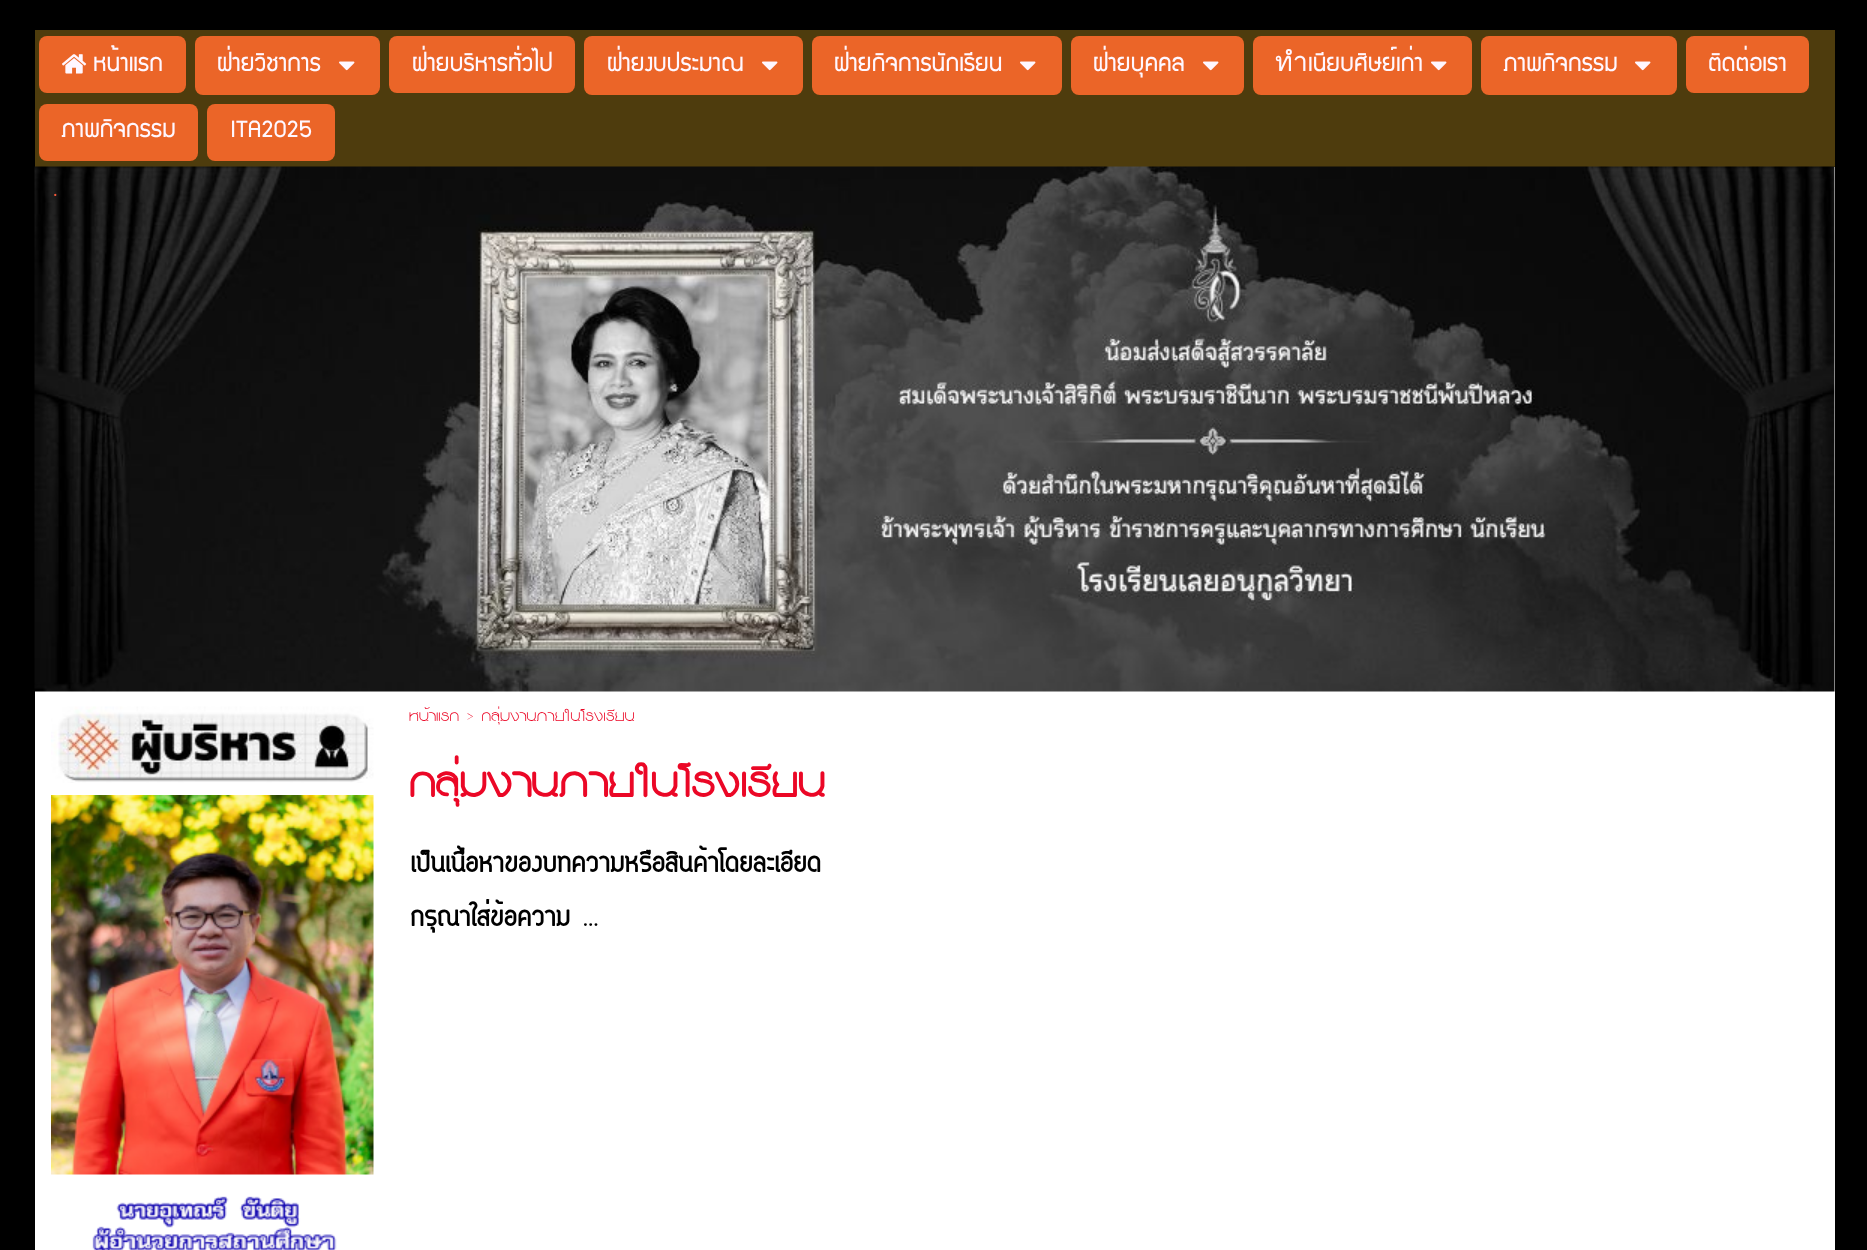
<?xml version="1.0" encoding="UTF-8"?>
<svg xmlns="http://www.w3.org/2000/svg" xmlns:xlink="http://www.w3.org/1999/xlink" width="1867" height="1250">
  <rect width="100%" height="100%" fill="#000000" />
  <rect x="35" y="30" width="1800" height="137" fill="#4e3c0d" />
  <rect x="39" y="36" width="147" height="57" rx="8" fill="#eb6528" />
  <image x="62" y="54" width="25" height="20" xlink:href="image1.png" />
  <rect x="195" y="36" width="185" height="59" rx="8" fill="#eb6528" />
  <image x="339" y="61" width="16" height="10" xlink:href="image2.png" />
  <rect x="389" y="36" width="186" height="57" rx="8" fill="#eb6528" />
  <rect x="584" y="36" width="219" height="59" rx="8" fill="#eb6528" />
  <image x="762" y="61" width="16" height="10" xlink:href="image2.png" />
  <rect x="812" y="36" width="250" height="59" rx="8" fill="#eb6528" />
  <image x="1020" y="61" width="16" height="10" xlink:href="image2.png" />
  <rect x="1071" y="36" width="173" height="59" rx="8" fill="#eb6528" />
  <image x="1203" y="61" width="16" height="10" xlink:href="image2.png" />
  <rect x="1253" y="36" width="219" height="59" rx="8" fill="#eb6528" />
  <image x="1431" y="61" width="16" height="10" xlink:href="image2.png" />
  <rect x="1481" y="36" width="196" height="59" rx="8" fill="#eb6528" />
  <image x="1635" y="61" width="16" height="10" xlink:href="image2.png" />
  <rect x="1686" y="36" width="123" height="57" rx="8" fill="#eb6528" />
  <rect x="39" y="104" width="159" height="57" rx="8" fill="#eb6528" />
  <rect x="207" y="104" width="128" height="57" rx="8" fill="#eb6528" />
  <rect x="35" y="167" width="1800" height="1083" fill="#ffffff" />
  <image x="34" y="166" width="1801" height="526" xlink:href="image3.png" />
  <image x="51" y="706" width="323" height="77" xlink:href="image4.png" />
  <image x="51" y="795" width="323" height="380" xlink:href="image5.png" />
  <image x="92" y="1196" width="245" height="54" xlink:href="image6.png" />
  <text x="93" y="71" style="font-family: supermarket; font-size: 27px; fill: #fff7ff">หน้าแรก</text>
  <text x="217" y="71" style="font-family: supermarket; font-size: 27px; fill: #fff7ff">ฝ่ายวิชาการ</text>
  <text x="412" y="71" style="font-family: supermarket; font-size: 27px; fill: #fff7ff">ฝ่ายบริหารทั่วไป</text>
  <text x="607" y="71" style="font-family: supermarket; font-size: 27px; fill: #fff7ff">ฝ่ายงบประมาณ</text>
  <text x="834" y="71" style="font-family: supermarket; font-size: 27px; fill: #fff7ff">ฝ่ายกิจการนักเรียน</text>
  <text x="1093" y="71" style="font-family: supermarket; font-size: 27px; fill: #fff7ff">ฝ่ายบุคคล</text>
  <text x="1275" y="71" style="font-family: supermarket; font-size: 27px; fill: #fff7ff">ทำเนียบศิษย์เก่า</text>
  <text x="1503" y="71" style="font-family: supermarket; font-size: 27px; fill: #fff7ff">ภาพกิจกรรม</text>
  <text x="1708" y="71" style="font-family: supermarket; font-size: 27px; fill: #fff7ff">ติดต่อเรา</text>
  <text x="61" y="137" style="font-family: supermarket; font-size: 27px; fill: #fff7ff">ภาพกิจกรรม</text>
  <text x="230" y="137" style="font-family: supermarket; font-size: 27px; fill: #fff7ff">ITA2025</text>
  <text x="53" y="196" style="font-family: supermarket; font-size: 21px; fill: #f15739">.</text>
  <text x="409" y="721" style="font-family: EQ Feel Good; font-size: 21px; fill: #eb0726">หน้าแรก &gt; กลุ่มงานภายในโรงเรียน</text>
  <text x="409" y="797" style="font-family: EQ Feel Good; font-size: 57px; font-weight: bold; fill: #eb0726">กลุ่มงานภายในโรงเรียน</text>
  <text x="410" y="872" style="font-family: Circular; font-size: 36px; font-weight: bold; fill: #000000">เป็นเนื้อหาของบทความหรือสินค้าโดยละเอียด</text>
  <text x="410" y="926" style="font-family: Circular; font-size: 36px; font-weight: bold; fill: #000000">กรุณาใส่ข้อความ …</text>
</svg>
